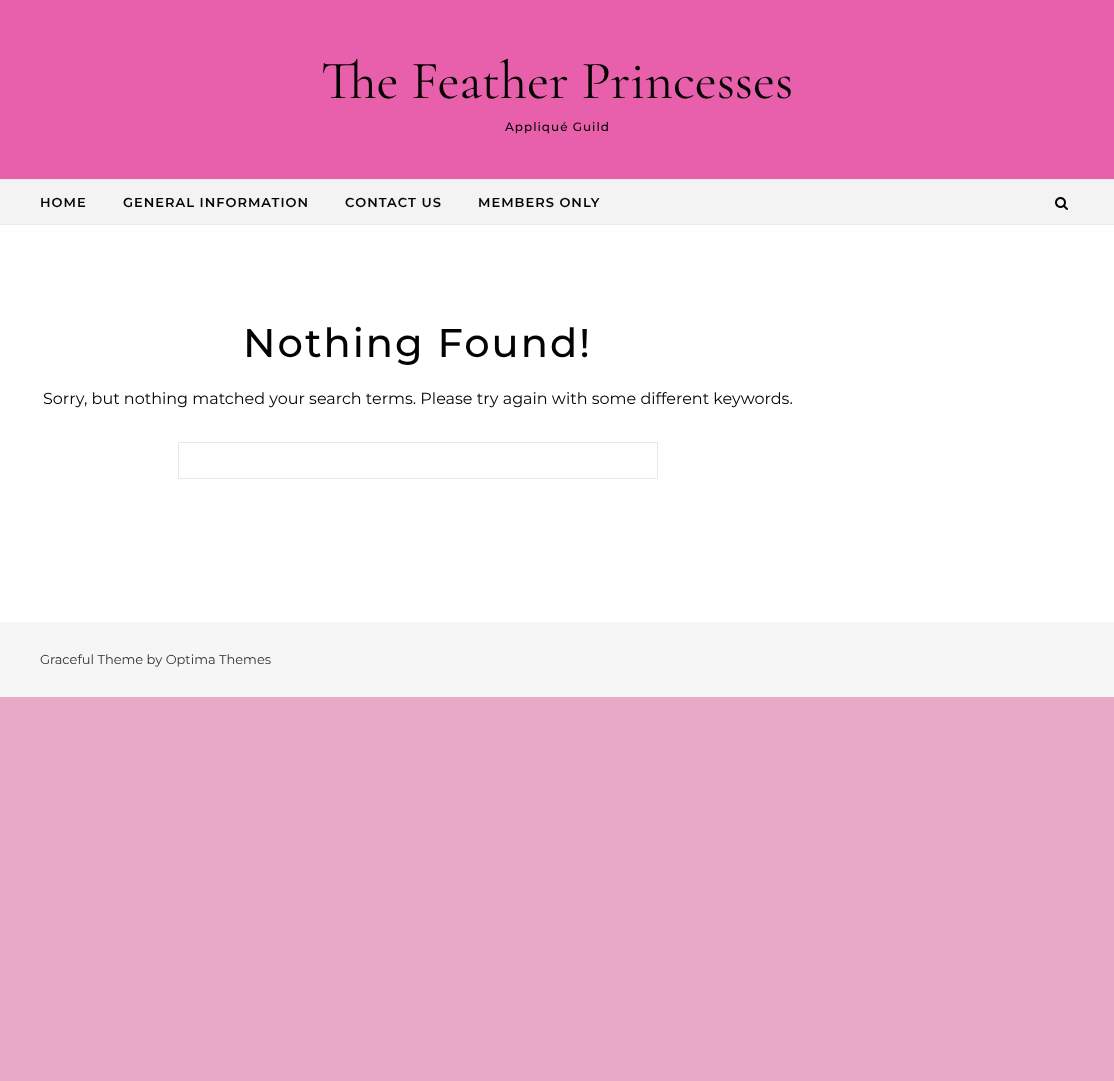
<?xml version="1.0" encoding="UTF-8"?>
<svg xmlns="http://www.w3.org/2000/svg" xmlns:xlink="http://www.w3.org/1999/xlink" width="1114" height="1081">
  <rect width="100%" height="100%" fill="#e8a9c9" />
  <rect width="1114" height="179" fill="#e85fac" />
  <rect y="179" width="1114" height="1" fill="#ebebeb" />
  <rect y="180" width="1114" height="44" fill="#f3f3f3" />
  <rect y="224" width="1114" height="1" fill="#ebebeb" />
  <image x="1055" y="197" width="13" height="13" xlink:href="image1.png" />
  <rect y="225" width="1114" height="397" fill="#ffffff" />
  <rect x="178.5" y="442.5" width="479" height="36" fill="none" stroke="#e8e8e8" />
  <rect y="622" width="1114" height="75" fill="#f6f6f6" />
  <text x="321" y="98" style="font-family: Cormorant Garamond; font-size: 54px; fill: #030303">The Feather Princesses</text>
  <text x="505" y="131" style="font-family: Montserrat; font-size: 12px; font-weight: 100; letter-spacing: 1px; fill: #030303">Appliqué Guild</text>
  <text x="40" y="207" style="font-family: 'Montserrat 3'; font-size: 13px; font-weight: 100; letter-spacing: 1px; fill: #030303">HOME</text>
  <text x="123" y="207" style="font-family: 'Montserrat 3'; font-size: 13px; font-weight: 100; letter-spacing: 1px; fill: #030303">GENERAL INFORMATION</text>
  <text x="345" y="207" style="font-family: 'Montserrat 3'; font-size: 13px; font-weight: 100; letter-spacing: 1px; fill: #030303">CONTACT US</text>
  <text x="478" y="207" style="font-family: 'Montserrat 3'; font-size: 13px; font-weight: 100; letter-spacing: 1px; fill: #030303">MEMBERS ONLY</text>
  <text x="243" y="357" style="font-family: Montserrat; font-size: 40px; font-weight: 100; letter-spacing: 2px; fill: #030303">Nothing Found!</text>
  <text x="43" y="404" style="font-family: 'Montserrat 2'; font-size: 16px; font-weight: 100; fill: #030303">Sorry, but nothing matched your search terms. Please try again with some different keywords.</text>
  <text x="40" y="664" style="font-family: 'Montserrat 2'; font-size: 13px; font-weight: 100; fill: #333333">Graceful Theme by Optima Themes</text>
</svg>
